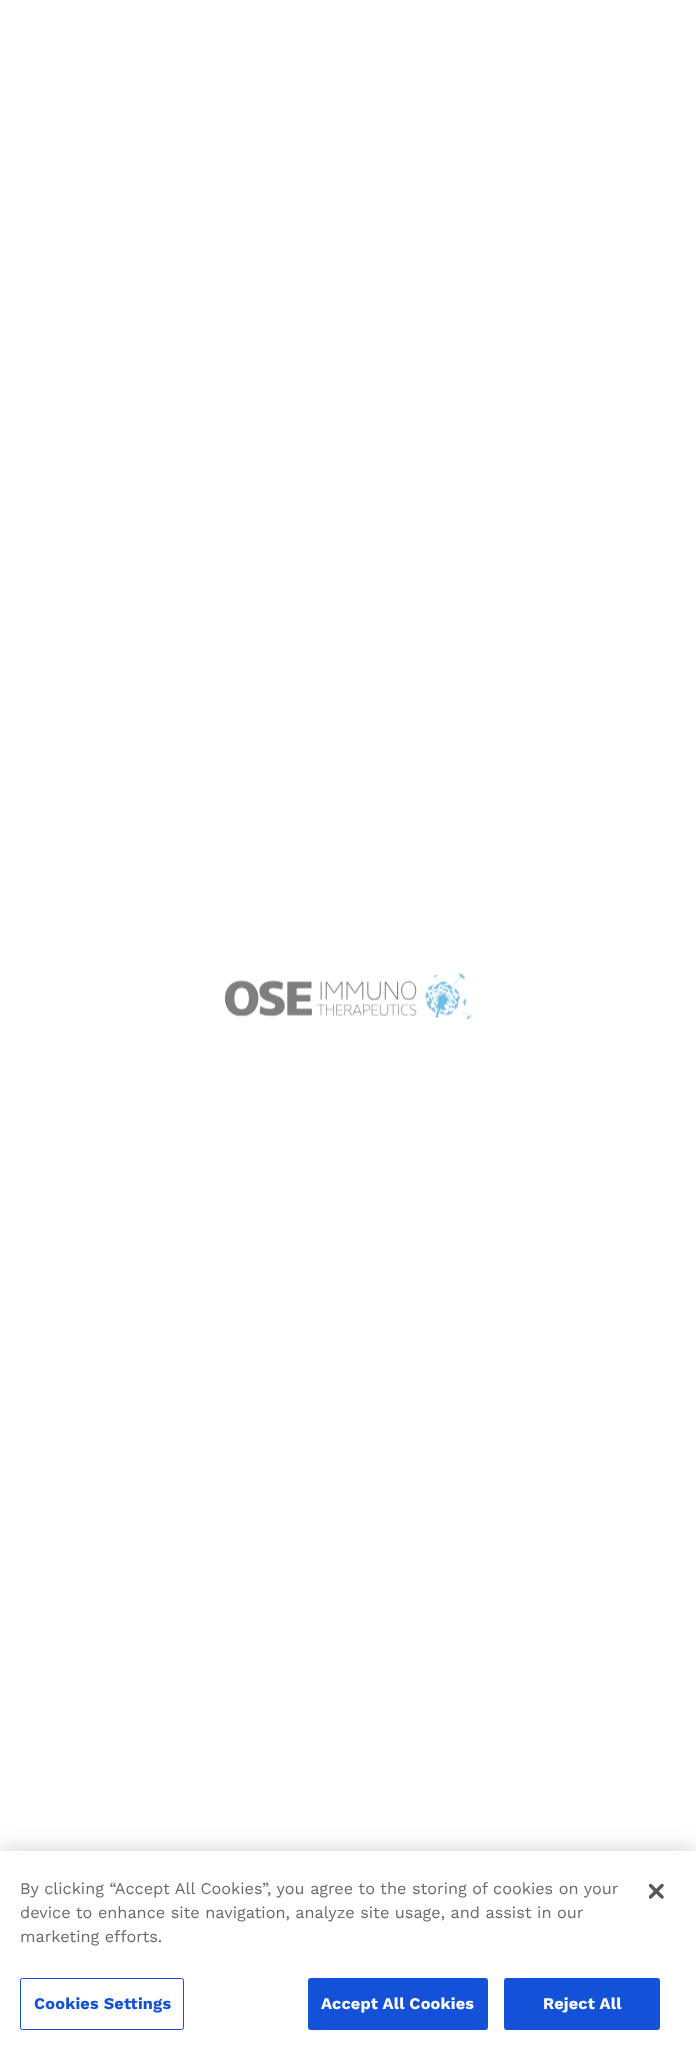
<?xml version="1.0" encoding="UTF-8"?>
<svg xmlns="http://www.w3.org/2000/svg" xmlns:xlink="http://www.w3.org/1999/xlink" width="696" height="2054">
  <rect width="100%" height="100%" fill="#ffffff" />
  <image x="225" y="972" width="246" height="48" xlink:href="image1.png" />
  <rect y="1851" width="696" height="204" fill="#000000" fill-opacity="0.2" filter="blur(11px)" />
  <rect y="1851" width="696" height="203" fill="#ffffff" />
  <rect x="20.5" y="1978.5" width="163" height="51" rx="2" fill="none" stroke="#1251d8" />
  <rect x="308.5" y="1978.5" width="179" height="51" rx="2" fill="#1251d8" stroke="#1251d8" />
  <rect x="504.5" y="1978.5" width="155" height="51" rx="2" fill="#1251d8" stroke="#1251d8" />
  <image x="649" y="1884" width="15" height="15" xlink:href="image2.png" />
  <text x="20" y="1894" style="font-family: Work Sans; font-size: 16.25px; fill: #696969">By clicking “Accept All Cookies”, you agree to the storing of cookies on your</text>
  <text x="20" y="1918" style="font-family: Work Sans; font-size: 16.25px; fill: #696969">device to enhance site navigation, analyze site usage, and assist in our</text>
  <text x="20" y="1942" style="font-family: Work Sans; font-size: 16.25px; fill: #696969">marketing efforts.</text>
  <text x="34" y="2009" style="font-family: Work Sans; font-size: 16.25px; font-weight: bold; letter-spacing: 0.2px; fill: #1251d8">Cookies Settings</text>
  <text x="321" y="2009" style="font-family: Work Sans; font-size: 16.25px; font-weight: bold; letter-spacing: 0.2px; fill: #ffffff">Accept All Cookies</text>
  <text x="543" y="2009" style="font-family: Work Sans; font-size: 16.25px; font-weight: bold; letter-spacing: 0.2px; fill: #ffffff">Reject All</text>
</svg>
